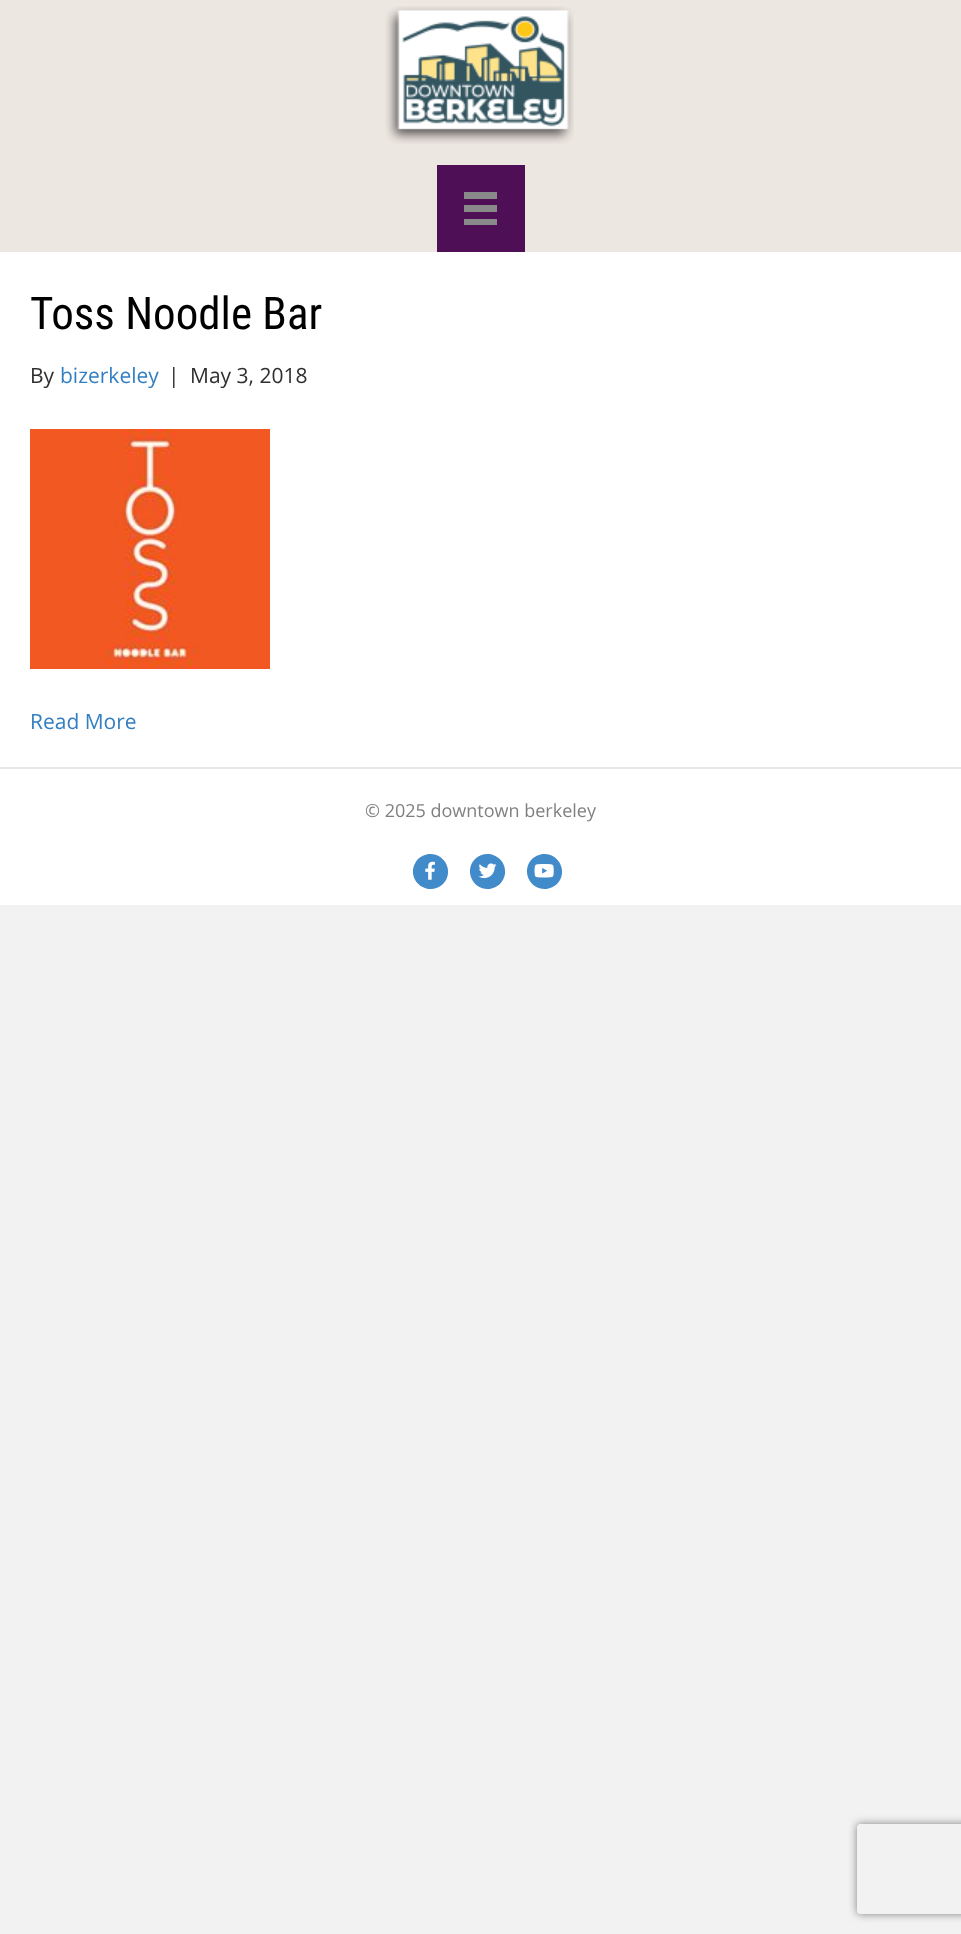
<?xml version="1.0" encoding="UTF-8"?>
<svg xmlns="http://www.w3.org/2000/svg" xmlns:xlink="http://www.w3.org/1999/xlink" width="961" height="1934">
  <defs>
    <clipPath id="clip1"><path d="M 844 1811 h 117 v 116 h -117 z m 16 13 h 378 c 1.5 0 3 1.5 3 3 v 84 c 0 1.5 -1.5 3 -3 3 h -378 c -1.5 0 -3 -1.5 -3 -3 v -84 c 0 -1.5 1.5 -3 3 -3 z" clip-rule="evenodd" /></clipPath>
  </defs>
  <rect width="100%" height="100%" fill="#f2f2f2" />
  <rect width="961" height="252" fill="#ede7e1" />
  <image x="385" y="6" width="189" height="138" xlink:href="image1.png" />
  <rect x="437" y="165" width="88" height="87" fill="#4e0f56" />
  <rect x="464" y="192" width="33" height="7" fill="#898989" />
  <rect x="464" y="205" width="33" height="7" fill="#898989" />
  <rect x="464" y="219" width="33" height="6" fill="#898989" />
  <rect y="252" width="961" height="515" fill="#ffffff" />
  <image x="30" y="429" width="240" height="240" xlink:href="image2.png" />
  <rect y="769" width="961" height="136" fill="#ffffff" />
  <rect y="767" width="961" height="2" fill="#e6e6e6" />
  <path d="M 418 859 c 3 -2.5 6.5 -4.5 10.5 -5 c 16.5 -1.5 26 18 14.5 30 c -12 11.5 -31.5 2 -30 -14.5 c 0.5 -4 2.5 -7.5 5 -10.5 z" fill="#428bca" />
  <image x="425" y="861" width="10" height="19" xlink:href="image3.png" />
  <path d="M 475 859 c 12 -11.5 31.5 -2 30 14.5 c -0.5 4 -2.5 7.5 -5 10.5 c -3 2.5 -6.5 4.5 -10.5 5 c -16.5 1.5 -26 -18 -14.5 -30 z" fill="#428bca" />
  <image x="478" y="863" width="19" height="16" xlink:href="image4.png" />
  <path d="M 532 859 c 3 -2.5 6.5 -4.5 10.5 -5 c 16.5 -1.5 26 18 14.5 30 c -3 2.5 -6.5 4.5 -10.5 5 c -16.5 1.5 -26 -18 -14.5 -30 z" fill="#428bca" />
  <image x="534" y="864" width="20" height="14" xlink:href="image5.png" />
  <g clip-path="url(#clip1)">
    <rect x="857" y="1824" width="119" height="90" rx="3" fill="#808080" filter="blur(4px)" />
  </g>
  <text x="30" y="329" style="font-family: Roboto Condensed; font-size: 45px; fill: #000000">Toss Noodle Bar</text>
  <text x="30" y="383" style="font-family: Open Sans; font-size: 21px; fill: #303030">By</text>
  <text x="60" y="383" style="font-family: Open Sans; font-size: 21px; fill: #337fc1">bizerkeley</text>
  <text x="168" y="383" style="font-family: Open Sans; font-size: 21px; fill: #303030">|</text>
  <text x="190" y="383" style="font-family: Open Sans; font-size: 21px; fill: #303030">May 3, 2018</text>
  <text x="30" y="729" style="font-family: Open Sans; font-size: 21px; fill: #337fc1">Read More</text>
  <text x="365" y="817" style="font-family: Open Sans; font-size: 18px; fill: #808080">© 2025 downtown berkeley</text>
</svg>
